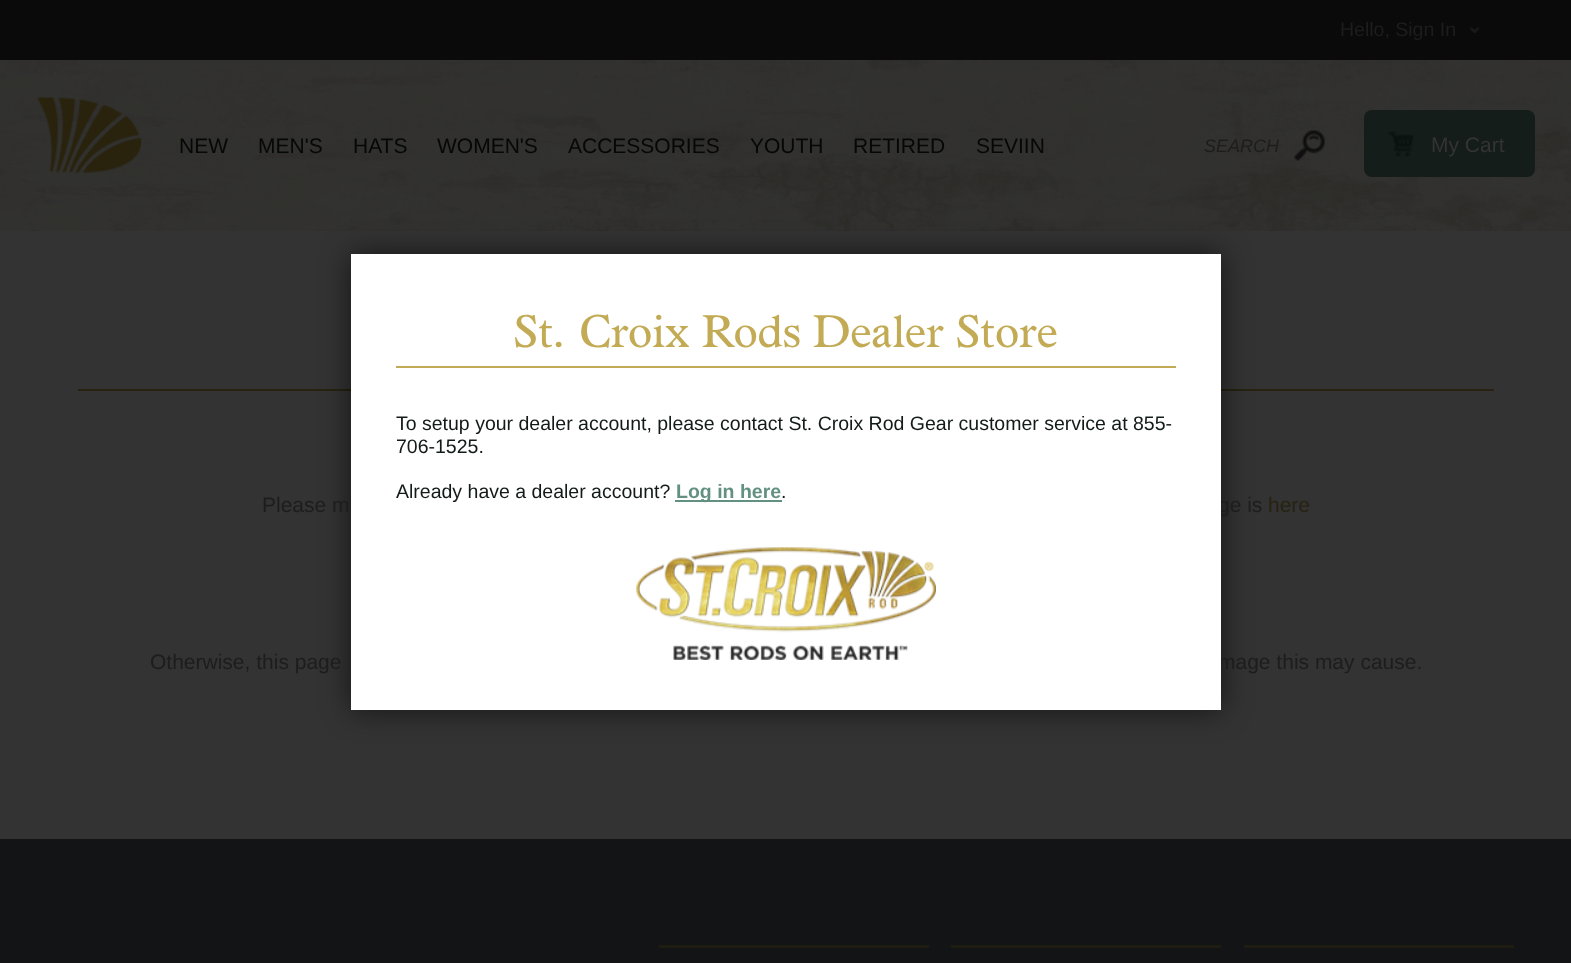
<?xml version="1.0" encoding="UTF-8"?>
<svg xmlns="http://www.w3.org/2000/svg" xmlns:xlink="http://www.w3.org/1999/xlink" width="1571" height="963">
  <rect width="100%" height="100%" fill="#333333" />
  <rect width="1571" height="60" fill="#0a0a0a" />
  <image x="1470" y="27" width="9" height="6" xlink:href="image1.png" />
  <image x="0" y="60" width="1571" height="171" xlink:href="image2.png" />
  <image x="37" y="97" width="104" height="76" xlink:href="image3.png" />
  <image x="1294" y="130" width="31" height="31" xlink:href="image4.png" />
  <rect x="1364" y="110" width="171" height="67" rx="8" fill="#141d1a" />
  <image x="1388" y="131" width="26" height="26" xlink:href="image5.png" />
  <rect x="78" y="389" width="1416" height="2" fill="#272211" />
  <rect y="839" width="1571" height="124" fill="#121415" />
  <rect x="659" y="945" width="270" height="3" fill="#1f1c11" />
  <rect x="951" y="945" width="270" height="3" fill="#1f1c11" />
  <rect x="1244" y="945" width="270" height="3" fill="#1f1c11" />
  <rect x="351" y="254" width="870" height="456" fill="#000000" fill-opacity="0.6" filter="blur(15px)" />
  <text x="1340" y="36" style="font-family: Liberation Sans; font-size: 19.5px; fill: #1d1d1d">Hello, Sign In</text>
  <text x="179" y="153" style="font-family: Liberation Sans; font-size: 21px; fill: #060707">NEW</text>
  <text x="258" y="153" style="font-family: Liberation Sans; font-size: 21px; fill: #060707">MEN'S</text>
  <text x="353" y="153" style="font-family: Liberation Sans; font-size: 21px; fill: #060707">HATS</text>
  <text x="437" y="153" style="font-family: Liberation Sans; font-size: 21px; fill: #060707">WOMEN'S</text>
  <text x="568" y="153" style="font-family: Liberation Sans; font-size: 21px; fill: #060707">ACCESSORIES</text>
  <text x="750" y="153" style="font-family: Liberation Sans; font-size: 21px; fill: #060707">YOUTH</text>
  <text x="853" y="153" style="font-family: Liberation Sans; font-size: 21px; fill: #060707">RETIRED</text>
  <text x="976" y="153" style="font-family: Liberation Sans; font-size: 21px; fill: #060707">SEVIIN</text>
  <text x="1204" y="152" style="font-family: Liberation Sans; font-size: 18px; font-style: italic; fill: #1d1d1d">SEARCH</text>
  <text x="1431" y="152" style="font-family: Liberation Sans; font-size: 21px; fill: #333333">My Cart</text>
  <text x="262" y="512" style="font-family: Liberation Sans; font-size: 21px; fill: #1d1d1d">Please m</text>
  <text x="1218" y="512" style="font-family: Liberation Sans; font-size: 21px; fill: #1d1d1d">ge is</text>
  <text x="1268" y="512" style="font-family: Liberation Sans; font-size: 21px; fill: #272211">here</text>
  <text x="150" y="669" style="font-family: Liberation Sans; font-size: 21px; fill: #1d1d1d">Otherwise, this page</text>
  <text x="1218" y="669" style="font-family: Liberation Sans; font-size: 21px; fill: #1d1d1d">mage this may cause.</text>
  <rect x="351" y="254" width="870" height="456" fill="#ffffff" />
  <rect x="396" y="366" width="780" height="2" fill="#c3ab56" />
  <text x="514" y="347" style="font-family: 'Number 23'; font-size: 45px; fill: #c3ab56">St. Croix Rods Dealer Store</text>
  <text x="396" y="430" style="font-family: Liberation Sans; font-size: 19.5px; fill: #121b18">To setup your dealer account, please contact St. Croix Rod Gear customer service at 855-</text>
  <text x="396" y="453" style="font-family: Liberation Sans; font-size: 19.5px; fill: #121b18">706-1525.</text>
  <text x="396" y="498" style="font-family: Liberation Sans; font-size: 19.5px; fill: #121b18">Already have a dealer account?</text>
  <rect x="675" y="500" width="107" height="2" fill="#629081" />
  <text x="676" y="498" style="font-family: Liberation Sans; font-size: 19.5px; font-weight: bold; fill: #629081">Log in here</text>
  <text x="781" y="498" style="font-family: Liberation Sans; font-size: 19.5px; fill: #121b18">.</text>
  <image x="636" y="547" width="300" height="113" xlink:href="image6.png" />
</svg>
